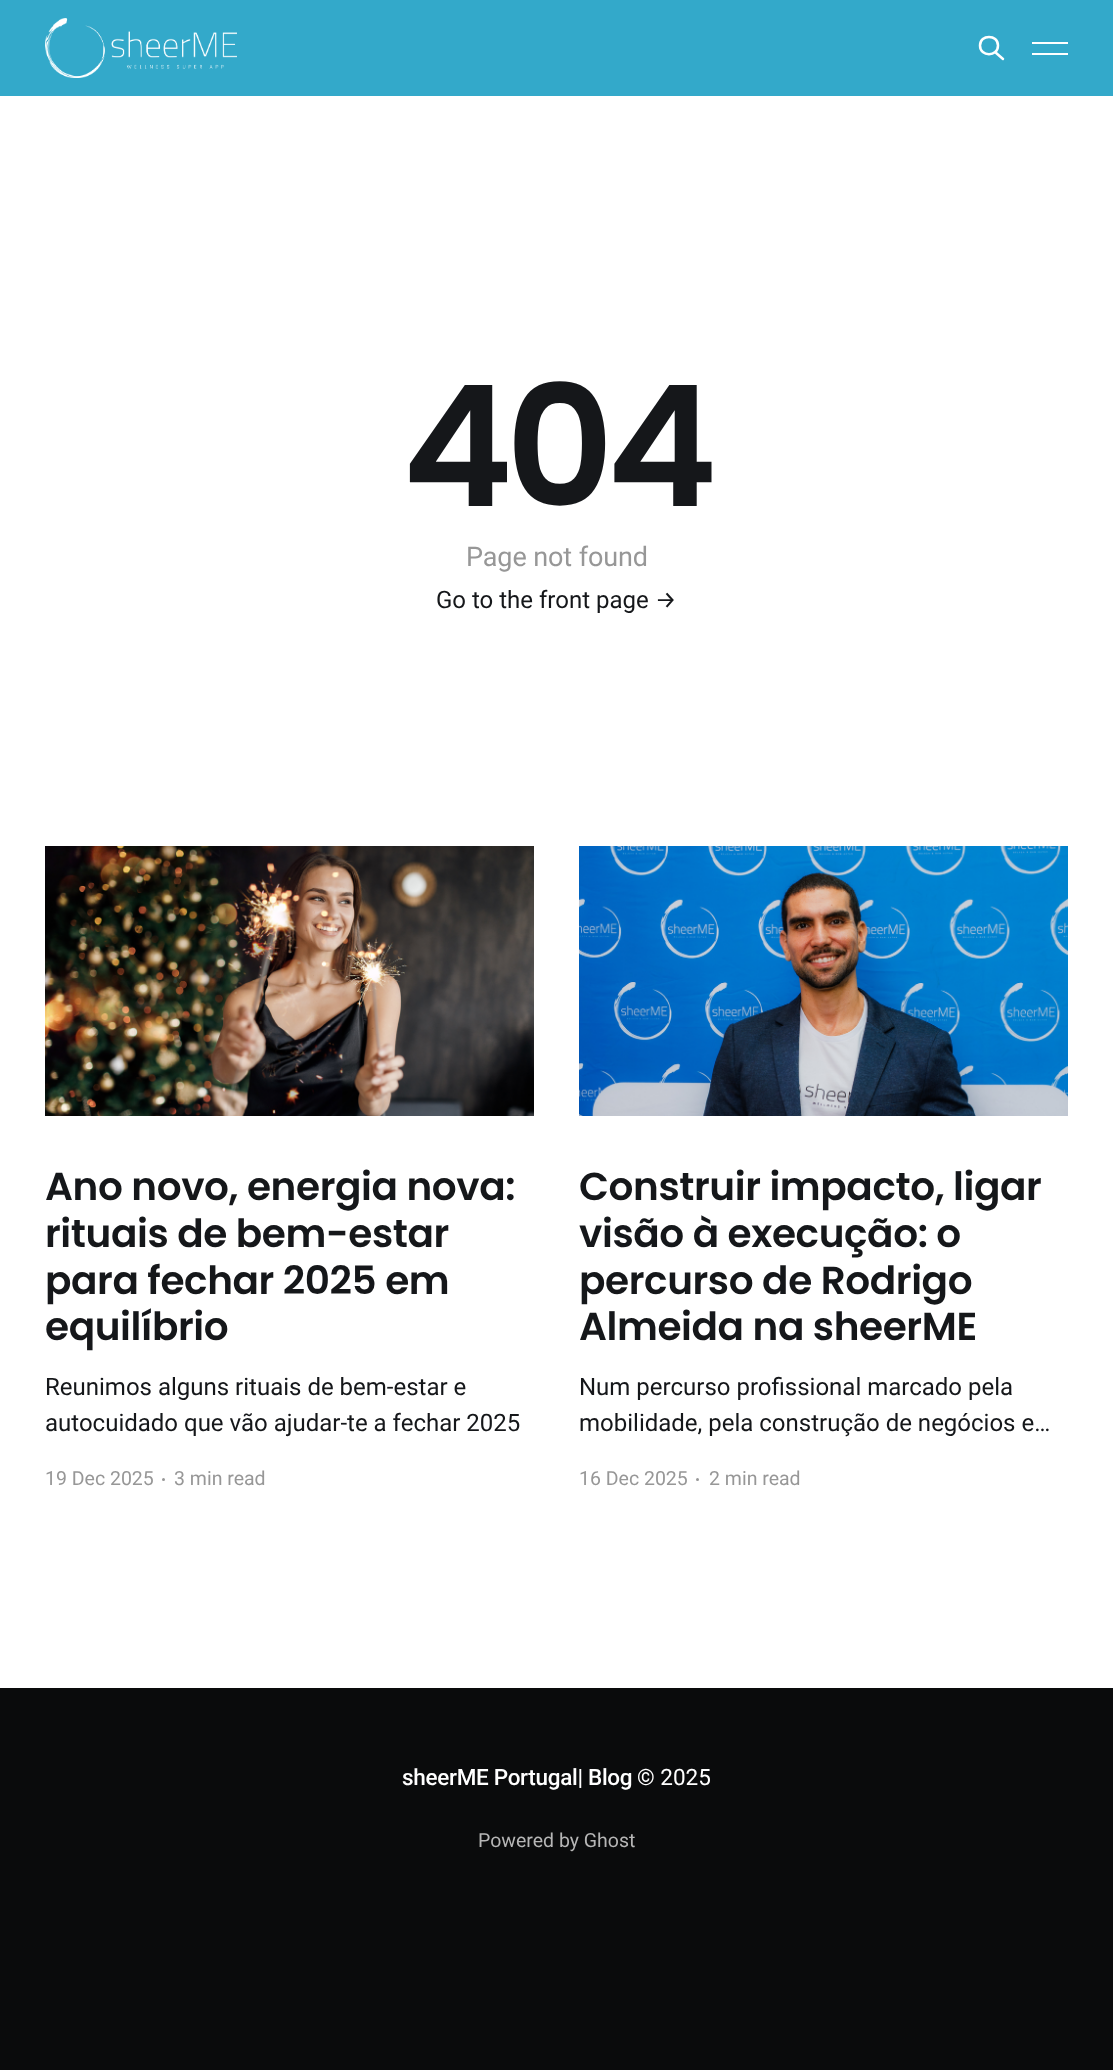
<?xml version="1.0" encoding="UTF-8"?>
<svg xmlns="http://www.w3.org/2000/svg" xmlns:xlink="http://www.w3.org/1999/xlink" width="1113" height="2070">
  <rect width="100%" height="100%" fill="#ffffff" />
  <rect width="1113" height="96" fill="#33a9ca" />
  <image x="45" y="18" width="192" height="60" xlink:href="image1.png" />
  <path d="M 1003 59 l -8 -7 m 3 -6.5 c 0 11.5 -18 11.5 -18 0 c 0 -11.5 18 -11.5 18 0 z" fill="none" stroke="#ffffff" stroke-width="2.5" stroke-linecap="round" stroke-linejoin="round" />
  <rect x="1032" y="42" width="36" height="2" fill="#ffffff" />
  <rect x="1032" y="53" width="36" height="2" fill="#ffffff" />
  <image x="45" y="846" width="489" height="270" xlink:href="image2.png" />
  <circle cx="163.5" cy="1479.5" r="1.5" fill="#979797" />
  <image x="579" y="846" width="489" height="270" xlink:href="image3.png" />
  <circle cx="697.5" cy="1479.5" r="1.5" fill="#979797" />
  <rect y="1688" width="1113" height="382" fill="#0a0b0c" />
  <text x="402" y="506" style="font-family: Poppins; font-size: 168px; font-weight: 600; letter-spacing: -7.5px; fill: #15171a">404</text>
  <text x="466" y="566" style="font-family: Roboto; font-size: 27px; letter-spacing: -0.1px; fill: #979797">Page not found</text>
  <text x="436" y="608" style="font-family: Roboto; font-size: 24px; fill: #15171a">Go to the front page</text>
  <text x="655" y="608" style="font-family: Fira Sans; font-size: 24px; fill: #15171a">→</text>
  <text x="45" y="1200" style="font-family: Poppins; font-size: 39px; font-weight: 600; letter-spacing: -0.4px; fill: #15171a">Ano novo, energia nova:</text>
  <text x="45" y="1247" style="font-family: Poppins; font-size: 39px; font-weight: 600; letter-spacing: -0.4px; fill: #15171a">rituais de bem-estar</text>
  <text x="45" y="1294" style="font-family: Poppins; font-size: 39px; font-weight: 600; letter-spacing: -0.4px; fill: #15171a">para fechar 2025 em</text>
  <text x="45" y="1340" style="font-family: Poppins; font-size: 39px; font-weight: 600; letter-spacing: -0.4px; fill: #15171a">equilíbrio</text>
  <text x="45" y="1395" style="font-family: Roboto; font-size: 24px; fill: #15171a">Reunimos alguns rituais de bem-estar e</text>
  <text x="45" y="1431" style="font-family: Roboto; font-size: 24px; fill: #15171a">autocuidado que vão ajudar-te a fechar 2025</text>
  <text x="45" y="1485" style="font-family: Roboto; font-size: 19.5px; fill: #979797">19 Dec 2025</text>
  <text x="174" y="1485" style="font-family: Roboto; font-size: 19.5px; fill: #979797">3 min read</text>
  <text x="579" y="1200" style="font-family: Poppins; font-size: 39px; font-weight: 600; letter-spacing: -0.4px; fill: #15171a">Construir impacto, ligar</text>
  <text x="579" y="1247" style="font-family: Poppins; font-size: 39px; font-weight: 600; letter-spacing: -0.4px; fill: #15171a">visão à execução: o</text>
  <text x="579" y="1294" style="font-family: Poppins; font-size: 39px; font-weight: 600; letter-spacing: -0.4px; fill: #15171a">percurso de Rodrigo</text>
  <text x="579" y="1340" style="font-family: Poppins; font-size: 39px; font-weight: 600; letter-spacing: -0.4px; fill: #15171a">Almeida na sheerME</text>
  <text x="579" y="1395" style="font-family: Roboto; font-size: 24px; fill: #15171a">Num percurso profissional marcado pela</text>
  <text x="579" y="1431" style="font-family: Roboto; font-size: 24px; fill: #15171a">mobilidade, pela construção de negócios e…</text>
  <text x="579" y="1485" style="font-family: Roboto; font-size: 19.5px; fill: #979797">16 Dec 2025</text>
  <text x="709" y="1485" style="font-family: Roboto; font-size: 19.5px; fill: #979797">2 min read</text>
  <text x="402" y="1785" style="font-family: Roboto; font-size: 22.5px; font-weight: 500; letter-spacing: -0.3px; fill: #ffffff">sheerME Portugal| Blog</text>
  <text x="637" y="1785" style="font-family: Roboto; font-size: 22.5px; fill: #ffffff">© 2025</text>
  <text x="478" y="1847" style="font-family: Roboto; font-size: 19.5px; fill: #b6b6b6">Powered by Ghost</text>
</svg>
